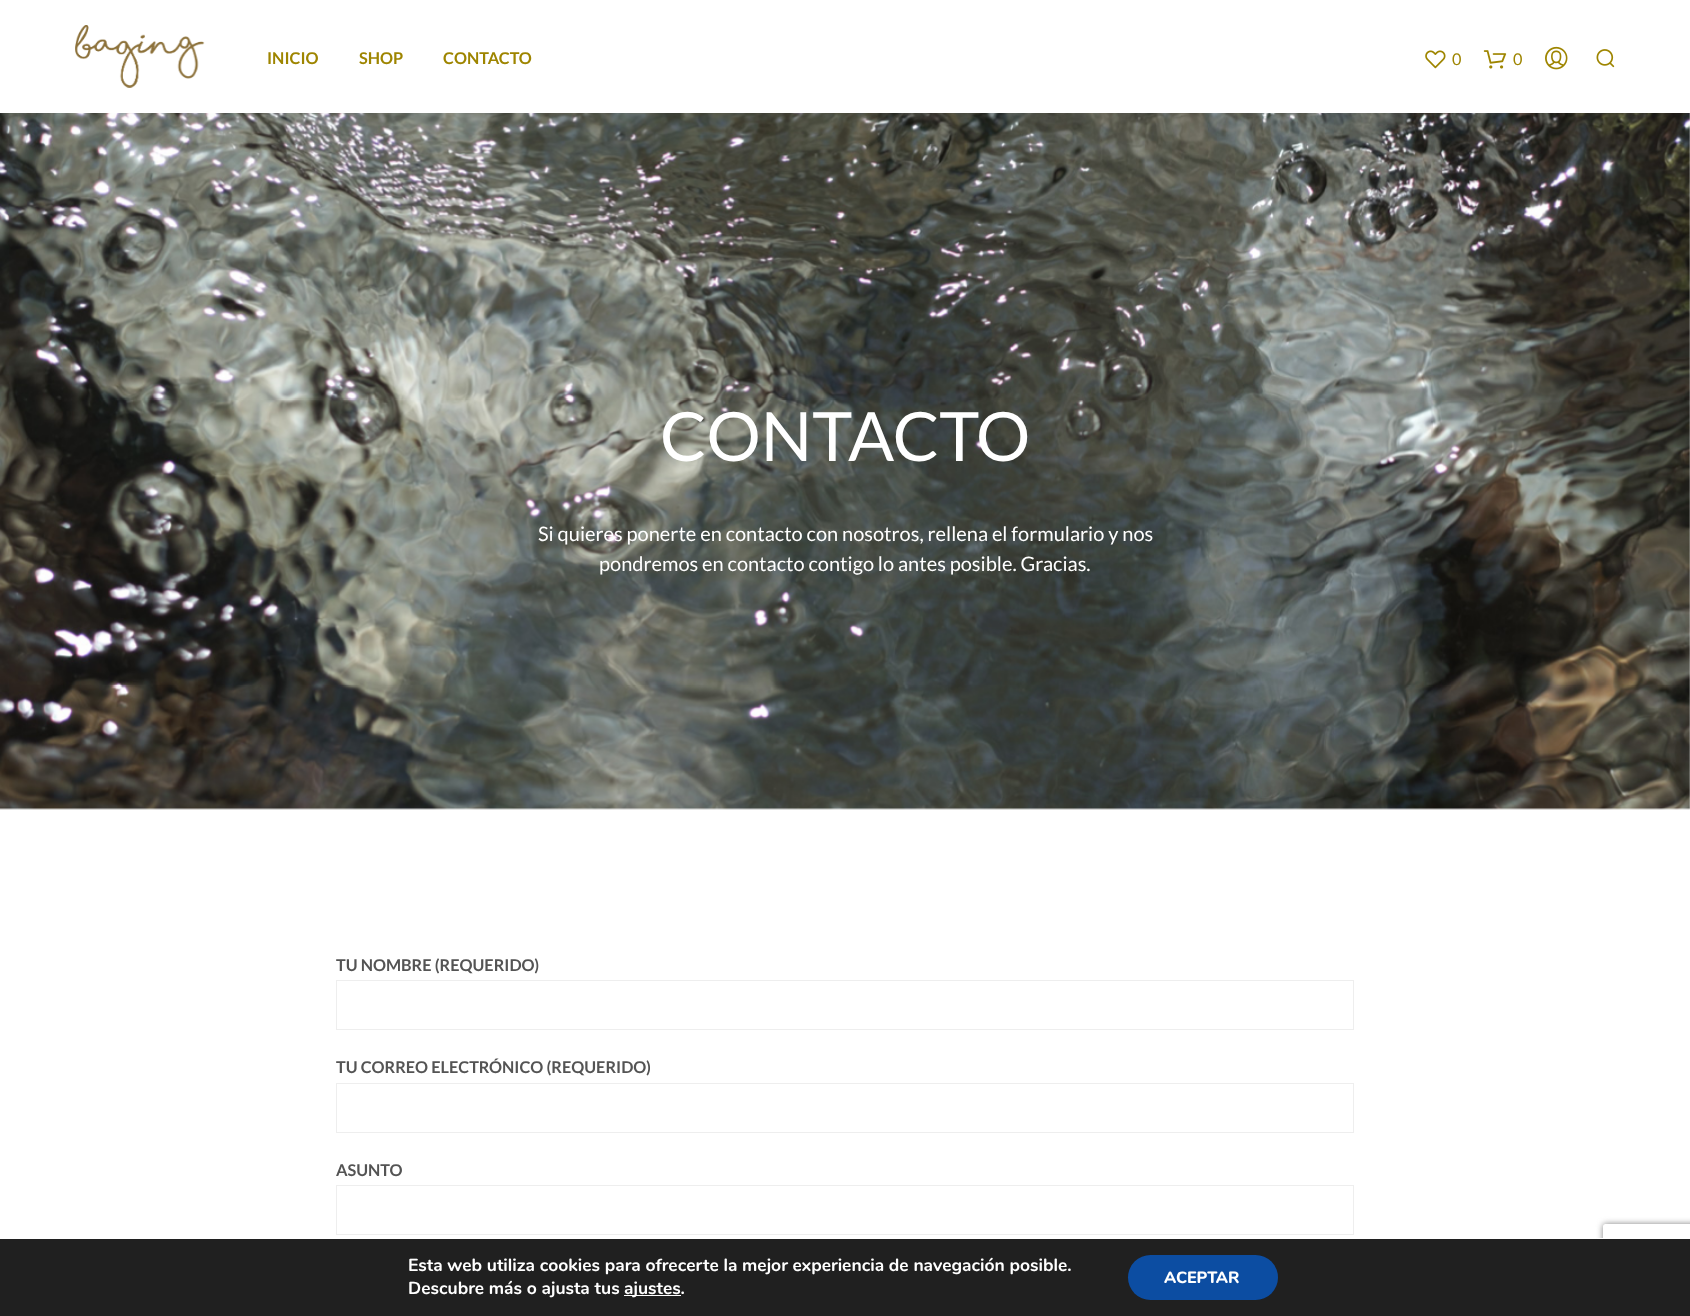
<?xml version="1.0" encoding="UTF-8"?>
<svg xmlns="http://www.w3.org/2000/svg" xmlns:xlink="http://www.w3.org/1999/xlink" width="1690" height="1316">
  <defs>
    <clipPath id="clip1"><path d="M 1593 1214 h 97 v 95 h -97 z m 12.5 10 h 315 c 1.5 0 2.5 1 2.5 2.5 v 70 c 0 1.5 -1 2.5 -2.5 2.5 h -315 c -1.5 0 -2.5 -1 -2.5 -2.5 v -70 c 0 -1.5 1 -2.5 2.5 -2.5 z" clip-rule="evenodd" /></clipPath>
  </defs>
  <rect width="100%" height="100%" fill="#ffffff" />
  <image x="75" y="25" width="130" height="63" xlink:href="image1.png" />
  <image x="1425" y="50" width="21" height="19" xlink:href="image2.png" />
  <image x="1483" y="50" width="24" height="19" xlink:href="image3.png" />
  <image x="1545" y="46" width="23" height="24" xlink:href="image4.png" />
  <image x="1596" y="49" width="19" height="19" xlink:href="image5.png" />
  <image x="0" y="113" width="1690" height="697" xlink:href="image6.png" />
  <rect x="336.5" y="980.5" width="1017" height="49" fill="none" stroke="#eeeeee" />
  <rect x="336.5" y="1083.5" width="1017" height="49" fill="none" stroke="#eeeeee" />
  <rect x="336.5" y="1185.5" width="1017" height="49" fill="none" stroke="#eeeeee" />
  <g clip-path="url(#clip1)">
    <rect x="1603" y="1224" width="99" height="75" rx="2.5" fill="#808080" filter="blur(3px)" />
  </g>
  <rect y="1239" width="1690" height="77" fill="#202020" />
  <rect x="1597" y="1238" width="6" height="1" fill="#ffffff" />
  <rect x="624" y="1295" width="57" height="1" fill="#ffffff" />
  <rect x="1128" y="1255" width="150" height="45" rx="22.5" fill="#0c4da2" />
  <text x="267" y="64" style="font-family: Lato; font-size: 16.25px; font-weight: bold; fill: #9e8500">INICIO</text>
  <text x="359" y="64" style="font-family: Lato; font-size: 16.25px; font-weight: bold; fill: #9e8500">SHOP</text>
  <text x="443" y="64" style="font-family: Lato; font-size: 16.25px; font-weight: bold; fill: #9e8500">CONTACTO</text>
  <text x="1452" y="65" style="font-family: Lato; font-size: 16.25px; fill: #9e8500">0</text>
  <text x="1513" y="65" style="font-family: Lato; font-size: 16.25px; fill: #9e8500">0</text>
  <text x="660" y="461" style="font-family: Lato; font-size: 68px; fill: #ffffff">CONTACTO</text>
  <text x="538" y="541" style="font-family: Lato; font-size: 20px; fill: #ffffff">Si quieres ponerte en contacto con nosotros, rellena el formulario y nos</text>
  <text x="599" y="571" style="font-family: Lato; font-size: 20px; fill: #ffffff">pondremos en contacto contigo lo antes posible. Gracias.</text>
  <text x="336" y="971" style="font-family: Lato; font-size: 16.25px; font-weight: bold; fill: #545454">TU NOMBRE (REQUERIDO)</text>
  <text x="336" y="1073" style="font-family: Lato; font-size: 16.25px; font-weight: bold; fill: #545454">TU CORREO ELECTRÓNICO (REQUERIDO)</text>
  <text x="336" y="1176" style="font-family: Lato; font-size: 16.25px; font-weight: bold; fill: #545454">ASUNTO</text>
  <text x="408" y="1271" style="font-family: Nunito; font-size: 17.5px; font-weight: bold; fill: #ffffff">Esta web utiliza cookies para ofrecerte la mejor experiencia de navegación posible.</text>
  <text x="408" y="1294" style="font-family: Nunito; font-size: 17.5px; font-weight: bold; fill: #ffffff">Descubre más o ajusta tus</text>
  <text x="624" y="1294" style="font-family: Nunito; font-size: 17.5px; font-weight: bold; fill: #ffffff">ajustes.</text>
  <text x="1164" y="1283" style="font-family: Nunito; font-size: 16.25px; font-weight: 800; fill: #ffffff">ACEPTAR</text>
</svg>
